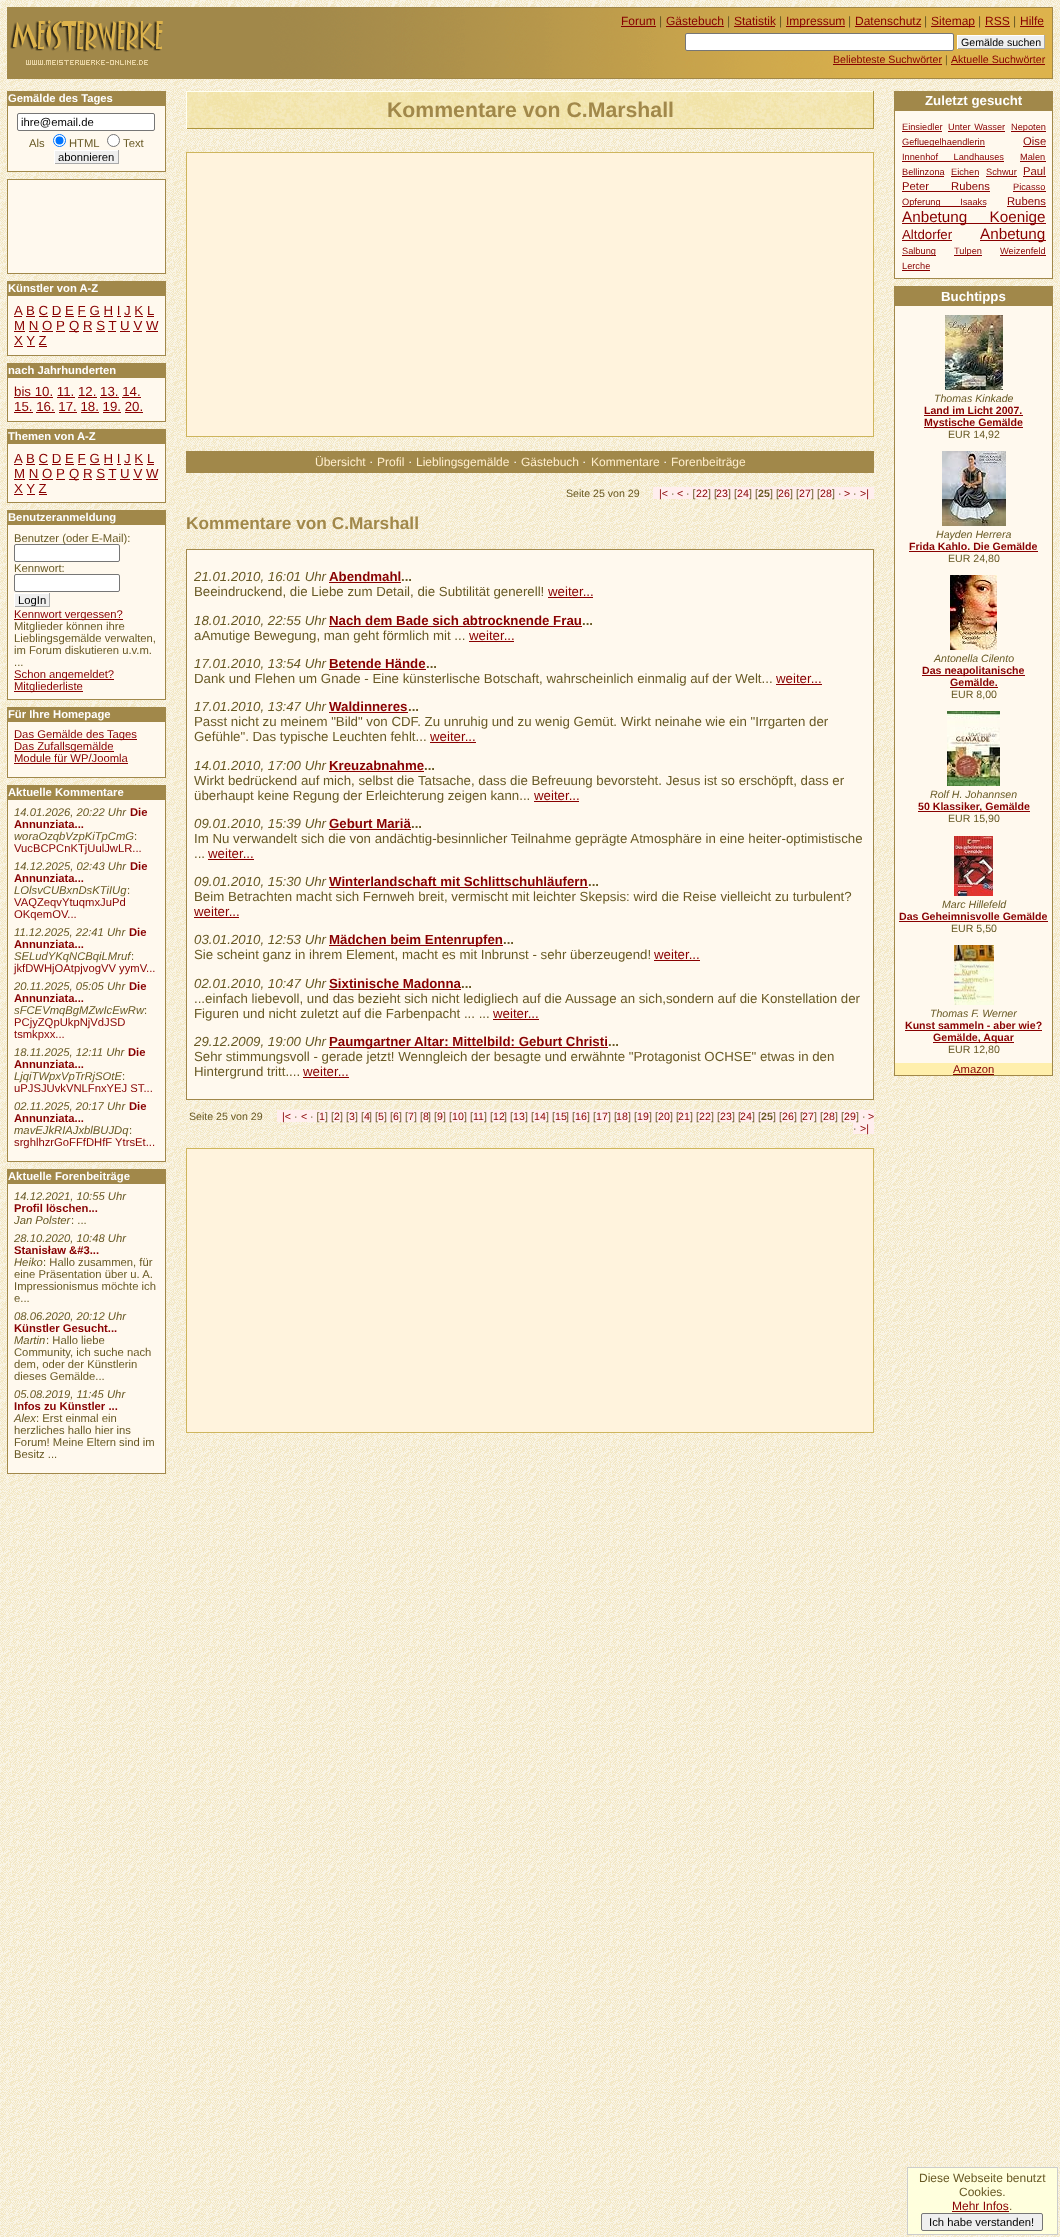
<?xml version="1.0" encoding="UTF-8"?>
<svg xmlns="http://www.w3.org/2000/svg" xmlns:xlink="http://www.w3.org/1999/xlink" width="1060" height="2237">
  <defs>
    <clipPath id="clip1"><rect x="15" y="594" width="34" height="12" /></clipPath>
  </defs>
  <rect width="100%" height="100%" fill="#ffffff" />
  <image x="0" y="0" width="1060" height="2237" xlink:href="image1.png" />
  <image x="168" y="8" width="884" height="70" xlink:href="image3.png" />
  <rect x="41.5" y="7.5" width="1011" height="71" fill="none" stroke="#a1884a" />
  <rect x="7" y="7" width="161" height="72" fill="#a1884a" />
  <image x="10" y="20" width="153" height="45" xlink:href="image2.png" />
  <rect x="621" y="26" width="35" height="1" fill="#880000" />
  <rect x="666" y="26" width="58" height="1" fill="#880000" />
  <rect x="734" y="26" width="41" height="1" fill="#880000" />
  <rect x="786" y="26" width="59" height="1" fill="#880000" />
  <rect x="855" y="26" width="66" height="1" fill="#880000" />
  <rect x="931" y="26" width="44" height="1" fill="#880000" />
  <rect x="985" y="26" width="25" height="1" fill="#880000" />
  <rect x="1020" y="26" width="24" height="1" fill="#880000" />
  <rect x="685.5" y="33.5" width="268" height="17" rx="1.5" fill="#ffffff" stroke="#767676" />
  <rect x="958" y="36" width="86" height="12" fill="#efefef" />
  <rect x="957" y="35" width="88" height="1" fill="#ffffff" />
  <rect x="1044" y="35" width="1" height="14" fill="#aaaaaa" />
  <rect x="957" y="48" width="88" height="1" fill="#aaaaaa" />
  <rect x="957" y="35" width="1" height="14" fill="#ffffff" />
  <rect x="833" y="64" width="109" height="1" fill="#880000" />
  <rect x="951" y="64" width="94" height="1" fill="#880000" />
  <rect x="7" y="91" width="159" height="14" fill="#a1884a" />
  <rect x="7.5" y="105.5" width="158" height="66" fill="#fff9ee" stroke="#a1884a" />
  <rect x="17.5" y="113.5" width="137" height="17" rx="1.5" fill="#ffffff" stroke="#767676" />
  <circle cx="59.5" cy="140.5" r="6" fill="#ffffff" stroke="#0075ff" />
  <circle cx="59.5" cy="140.5" r="4" fill="#0075ff" />
  <circle cx="113.5" cy="140.5" r="6" fill="#ffffff" stroke="#767676" />
  <rect x="55" y="151" width="63" height="12" fill="#efefef" />
  <rect x="54" y="150" width="65" height="1" fill="#ffffff" />
  <rect x="118" y="150" width="1" height="14" fill="#aaaaaa" />
  <rect x="54" y="163" width="65" height="1" fill="#aaaaaa" />
  <rect x="54" y="150" width="1" height="14" fill="#ffffff" />
  <rect x="7.5" y="179.5" width="158" height="94" fill="#fff9ee" stroke="#a1884a" />
  <rect x="7" y="281" width="159" height="14" fill="#a1884a" />
  <rect x="7.5" y="295.5" width="158" height="60" fill="#fff9ee" stroke="#a1884a" />
  <rect x="14" y="316" width="8" height="1" fill="#880000" />
  <rect x="26" y="316" width="9" height="1" fill="#880000" />
  <rect x="39" y="316" width="9" height="1" fill="#880000" />
  <rect x="52" y="316" width="9" height="1" fill="#880000" />
  <rect x="65" y="316" width="9" height="1" fill="#880000" />
  <rect x="78" y="316" width="8" height="1" fill="#880000" />
  <rect x="90" y="316" width="10" height="1" fill="#880000" />
  <rect x="104" y="316" width="9" height="1" fill="#880000" />
  <rect x="117" y="316" width="4" height="1" fill="#880000" />
  <rect x="124" y="316" width="7" height="1" fill="#880000" />
  <rect x="135" y="316" width="8" height="1" fill="#880000" />
  <rect x="147" y="316" width="7" height="1" fill="#880000" />
  <rect x="14" y="331" width="11" height="1" fill="#880000" />
  <rect x="69" y="331" width="10" height="1" fill="#880000" />
  <rect x="29" y="331" width="10" height="1" fill="#880000" />
  <rect x="42" y="331" width="11" height="1" fill="#880000" />
  <rect x="56" y="331" width="9" height="1" fill="#880000" />
  <rect x="83" y="331" width="9" height="1" fill="#880000" />
  <rect x="96" y="331" width="9" height="1" fill="#880000" />
  <rect x="108" y="331" width="8" height="1" fill="#880000" />
  <rect x="120" y="331" width="10" height="1" fill="#880000" />
  <rect x="133" y="331" width="9" height="1" fill="#880000" />
  <rect x="146" y="331" width="12" height="1" fill="#880000" />
  <rect x="14" y="346" width="9" height="1" fill="#880000" />
  <rect x="27" y="346" width="8" height="1" fill="#880000" />
  <rect x="39" y="346" width="8" height="1" fill="#880000" />
  <rect x="7" y="363" width="159" height="14" fill="#a1884a" />
  <rect x="7.5" y="377.5" width="158" height="44" fill="#fff9ee" stroke="#a1884a" />
  <rect x="14" y="397" width="39" height="1" fill="#880000" />
  <rect x="57" y="397" width="18" height="1" fill="#880000" />
  <rect x="78" y="397" width="19" height="1" fill="#880000" />
  <rect x="100" y="397" width="19" height="1" fill="#880000" />
  <rect x="122" y="397" width="19" height="1" fill="#880000" />
  <rect x="14" y="412" width="19" height="1" fill="#880000" />
  <rect x="36" y="412" width="19" height="1" fill="#880000" />
  <rect x="59" y="412" width="18" height="1" fill="#880000" />
  <rect x="81" y="412" width="18" height="1" fill="#880000" />
  <rect x="103" y="412" width="18" height="1" fill="#880000" />
  <rect x="125" y="412" width="18" height="1" fill="#880000" />
  <rect x="7" y="429" width="159" height="14" fill="#a1884a" />
  <rect x="7.5" y="443.5" width="158" height="59" fill="#fff9ee" stroke="#a1884a" />
  <rect x="14" y="464" width="8" height="1" fill="#880000" />
  <rect x="26" y="464" width="9" height="1" fill="#880000" />
  <rect x="39" y="464" width="9" height="1" fill="#880000" />
  <rect x="52" y="464" width="9" height="1" fill="#880000" />
  <rect x="65" y="464" width="9" height="1" fill="#880000" />
  <rect x="78" y="464" width="8" height="1" fill="#880000" />
  <rect x="90" y="464" width="10" height="1" fill="#880000" />
  <rect x="104" y="464" width="9" height="1" fill="#880000" />
  <rect x="117" y="464" width="4" height="1" fill="#880000" />
  <rect x="124" y="464" width="7" height="1" fill="#880000" />
  <rect x="135" y="464" width="8" height="1" fill="#880000" />
  <rect x="147" y="464" width="7" height="1" fill="#880000" />
  <rect x="14" y="479" width="11" height="1" fill="#880000" />
  <rect x="69" y="479" width="10" height="1" fill="#880000" />
  <rect x="29" y="479" width="10" height="1" fill="#880000" />
  <rect x="42" y="479" width="11" height="1" fill="#880000" />
  <rect x="56" y="479" width="9" height="1" fill="#880000" />
  <rect x="83" y="479" width="9" height="1" fill="#880000" />
  <rect x="96" y="479" width="9" height="1" fill="#880000" />
  <rect x="108" y="479" width="8" height="1" fill="#880000" />
  <rect x="120" y="479" width="10" height="1" fill="#880000" />
  <rect x="133" y="479" width="9" height="1" fill="#880000" />
  <rect x="146" y="479" width="12" height="1" fill="#880000" />
  <rect x="14" y="494" width="9" height="1" fill="#880000" />
  <rect x="27" y="494" width="8" height="1" fill="#880000" />
  <rect x="39" y="494" width="8" height="1" fill="#880000" />
  <rect x="7" y="510" width="159" height="14" fill="#a1884a" />
  <rect x="7.5" y="524.5" width="158" height="175" fill="#fff9ee" stroke="#a1884a" />
  <rect x="14.5" y="574.5" width="105" height="17" rx="1.5" fill="#ffffff" stroke="#767676" />
  <rect x="15" y="594" width="34" height="12" fill="#efefef" />
  <rect x="14" y="593" width="36" height="1" fill="#ffffff" />
  <rect x="49" y="593" width="1" height="14" fill="#aaaaaa" />
  <rect x="14" y="606" width="36" height="1" fill="#aaaaaa" />
  <rect x="14" y="593" width="1" height="14" fill="#ffffff" />
  <rect x="14" y="619" width="109" height="1" fill="#880000" />
  <rect x="14" y="679" width="100" height="1" fill="#880000" />
  <rect x="14" y="691" width="69" height="1" fill="#880000" />
  <rect x="7" y="707" width="159" height="14" fill="#a1884a" />
  <rect x="7.5" y="721.5" width="158" height="56" fill="#fff9ee" stroke="#a1884a" />
  <rect x="14" y="739" width="123" height="1" fill="#880000" />
  <rect x="14" y="751" width="100" height="1" fill="#880000" />
  <rect x="14" y="763" width="114" height="1" fill="#880000" />
  <rect x="7" y="785" width="159" height="14" fill="#a1884a" />
  <rect x="7.5" y="799.5" width="158" height="362" fill="#fff9ee" stroke="#a1884a" />
  <rect x="7" y="1169" width="159" height="14" fill="#a1884a" />
  <rect x="7.5" y="1183.5" width="158" height="290" fill="#fff9ee" stroke="#a1884a" />
  <image x="187" y="92" width="686" height="36" xlink:href="image4.png" />
  <rect x="186" y="91" width="688" height="1" fill="#fffff3" />
  <rect x="873" y="91" width="1" height="38" fill="#ae953c" />
  <rect x="186" y="128" width="688" height="1" fill="#ae953c" />
  <rect x="186" y="91" width="1" height="38" fill="#fffff3" />
  <rect x="186.5" y="152.5" width="687" height="284" fill="#fff3dd" stroke="#ceb55c" />
  <rect x="186" y="451" width="688" height="22" fill="#a1884a" />
  <rect x="653" y="487" width="221" height="12" fill="#ffeeee" />
  <rect x="186.5" y="549.5" width="687" height="550" fill="#fff9ee" stroke="#a1884a" />
  <rect x="329" y="582" width="72" height="1" fill="#880000" />
  <rect x="548" y="597" width="45" height="1" fill="#880000" />
  <rect x="329" y="626" width="253" height="1" fill="#880000" />
  <rect x="469" y="641" width="45" height="1" fill="#880000" />
  <rect x="329" y="669" width="97" height="1" fill="#880000" />
  <rect x="776" y="684" width="46" height="1" fill="#880000" />
  <rect x="329" y="712" width="79" height="1" fill="#880000" />
  <rect x="430" y="742" width="46" height="1" fill="#880000" />
  <rect x="329" y="771" width="95" height="1" fill="#880000" />
  <rect x="534" y="801" width="45" height="1" fill="#880000" />
  <rect x="329" y="829" width="82" height="1" fill="#880000" />
  <rect x="208" y="859" width="46" height="1" fill="#880000" />
  <rect x="329" y="887" width="259" height="1" fill="#880000" />
  <rect x="194" y="917" width="45" height="1" fill="#880000" />
  <rect x="329" y="945" width="174" height="1" fill="#880000" />
  <rect x="654" y="960" width="46" height="1" fill="#880000" />
  <rect x="329" y="989" width="132" height="1" fill="#880000" />
  <rect x="493" y="1019" width="46" height="1" fill="#880000" />
  <rect x="329" y="1047" width="279" height="1" fill="#880000" />
  <rect x="303" y="1077" width="46" height="1" fill="#880000" />
  <rect x="277" y="1110" width="597" height="12" fill="#ffeeee" />
  <rect x="853" y="1122" width="21" height="12" fill="#ffeeee" />
  <rect x="894" y="91" width="159" height="19" fill="#a1884a" />
  <rect x="894.5" y="110.5" width="158" height="168" fill="#fff9ee" stroke="#a1884a" />
  <rect x="902" y="131" width="40" height="1" fill="#880000" />
  <rect x="948" y="131" width="57" height="1" fill="#880000" />
  <rect x="1011" y="131" width="35" height="1" fill="#880000" />
  <rect x="902" y="146" width="83" height="1" fill="#880000" />
  <rect x="1023" y="146" width="23" height="1" fill="#880000" />
  <rect x="902" y="161" width="102" height="1" fill="#880000" />
  <rect x="1020" y="161" width="26" height="1" fill="#880000" />
  <rect x="902" y="176" width="42" height="1" fill="#880000" />
  <rect x="951" y="176" width="28" height="1" fill="#880000" />
  <rect x="986" y="176" width="31" height="1" fill="#880000" />
  <rect x="1023" y="176" width="23" height="1" fill="#880000" />
  <rect x="902" y="191" width="88" height="1" fill="#880000" />
  <rect x="1013" y="191" width="33" height="1" fill="#880000" />
  <rect x="902" y="206" width="84" height="1" fill="#880000" />
  <rect x="1007" y="206" width="39" height="1" fill="#880000" />
  <rect x="902" y="223" width="144" height="1" fill="#880000" />
  <rect x="902" y="240" width="50" height="1" fill="#880000" />
  <rect x="980" y="240" width="66" height="1" fill="#880000" />
  <rect x="902" y="255" width="34" height="1" fill="#880000" />
  <rect x="954" y="255" width="28" height="1" fill="#880000" />
  <rect x="1000" y="255" width="46" height="1" fill="#880000" />
  <rect x="902" y="270" width="28" height="1" fill="#880000" />
  <rect x="895" y="306" width="157" height="757" fill="#fff9ee" />
  <rect x="894.5" y="286.5" width="158" height="789" fill="none" stroke="#a1884a" />
  <rect x="895" y="287" width="157" height="19" fill="#a1884a" />
  <image x="945" y="315" width="58" height="75" xlink:href="image5.png" />
  <rect x="924" y="415" width="99" height="1" fill="#880000" />
  <rect x="924" y="427" width="99" height="1" fill="#880000" />
  <image x="942" y="451" width="64" height="75" xlink:href="image6.png" />
  <rect x="909" y="551" width="129" height="1" fill="#880000" />
  <image x="950" y="575" width="47" height="75" xlink:href="image7.png" />
  <rect x="922" y="675" width="103" height="1" fill="#880000" />
  <rect x="950" y="687" width="48" height="1" fill="#880000" />
  <image x="947" y="711" width="53" height="75" xlink:href="image8.png" />
  <rect x="918" y="811" width="112" height="1" fill="#880000" />
  <image x="954" y="836" width="39" height="60" xlink:href="image9.png" />
  <rect x="899" y="921" width="149" height="1" fill="#880000" />
  <image x="954" y="945" width="40" height="60" xlink:href="image10.png" />
  <rect x="905" y="1030" width="137" height="1" fill="#880000" />
  <rect x="933" y="1042" width="81" height="1" fill="#880000" />
  <rect x="895" y="1063" width="157" height="12" fill="#ffefac" />
  <rect x="953" y="1074" width="41" height="1" fill="#880000" />
  <rect x="186.5" y="1148.5" width="687" height="284" fill="#fff3dd" stroke="#ceb55c" />
  <rect x="907.5" y="2167.5" width="150" height="67" fill="#ffffdd" stroke="#cccccc" />
  <rect x="952" y="2211" width="57" height="1" fill="#880000" />
  <rect x="921.5" y="2213.5" width="121" height="17" rx="1.5" fill="#efefef" stroke="#767676" />
  <text x="621" y="25" style="font-family: Liberation Sans; font-size: 12px; fill: #880000">Forum</text>
  <text x="659" y="25" style="font-family: Liberation Sans; font-size: 12px; fill: #685924">|</text>
  <text x="666" y="25" style="font-family: Liberation Sans; font-size: 12px; fill: #880000">Gästebuch</text>
  <text x="727" y="25" style="font-family: Liberation Sans; font-size: 12px; fill: #685924">|</text>
  <text x="734" y="25" style="font-family: Liberation Sans; font-size: 12px; fill: #880000">Statistik</text>
  <text x="779" y="25" style="font-family: Liberation Sans; font-size: 12px; fill: #685924">|</text>
  <text x="786" y="25" style="font-family: Liberation Sans; font-size: 12px; fill: #880000">Impressum</text>
  <text x="848" y="25" style="font-family: Liberation Sans; font-size: 12px; fill: #685924">|</text>
  <text x="855" y="25" style="font-family: Liberation Sans; font-size: 12px; fill: #880000">Datenschutz</text>
  <text x="924" y="25" style="font-family: Liberation Sans; font-size: 12px; fill: #685924">|</text>
  <text x="931" y="25" style="font-family: Liberation Sans; font-size: 12px; fill: #880000">Sitemap</text>
  <text x="978" y="25" style="font-family: Liberation Sans; font-size: 12px; fill: #685924">|</text>
  <text x="985" y="25" style="font-family: Liberation Sans; font-size: 12px; fill: #880000">RSS</text>
  <text x="1013" y="25" style="font-family: Liberation Sans; font-size: 12px; fill: #685924">|</text>
  <text x="1020" y="25" style="font-family: Liberation Sans; font-size: 12px; fill: #880000">Hilfe</text>
  <text x="961" y="46" style="font-family: Liberation Sans; font-size: 10.6px; fill: #000000">Gemälde suchen</text>
  <text x="833" y="63" style="font-family: Liberation Sans; font-size: 10.6px; fill: #880000">Beliebteste Suchwörter</text>
  <text x="945" y="63" style="font-family: Liberation Sans; font-size: 10.6px; fill: #685924">|</text>
  <text x="951" y="63" style="font-family: Liberation Sans; font-size: 10.6px; fill: #880000">Aktuelle Suchwörter</text>
  <text x="8" y="102" style="font-family: Liberation Sans; font-size: 11.25px; font-weight: bold; fill: #ffffff">Gemälde des Tages</text>
  <text x="21" y="126" style="font-family: Liberation Sans; font-size: 11.25px; fill: #000000">ihre@email.de</text>
  <text x="29" y="147" style="font-family: Liberation Sans; font-size: 11.25px; fill: #685924">Als</text>
  <text x="69" y="147" style="font-family: Liberation Sans; font-size: 11.25px; fill: #685924">HTML</text>
  <text x="123" y="147" style="font-family: Liberation Sans; font-size: 11.25px; fill: #685924">Text</text>
  <text x="58" y="161" style="font-family: Liberation Sans; font-size: 11.25px; fill: #000000">abonnieren</text>
  <text x="8" y="292" style="font-family: Liberation Sans; font-size: 11.25px; font-weight: bold; fill: #ffffff">Künstler von A-Z</text>
  <text x="14" y="315" style="font-family: Liberation Sans; font-size: 13.28px; fill: #880000">A</text>
  <text x="26" y="315" style="font-family: Liberation Sans; font-size: 13.28px; fill: #880000">B C D E F G H I J K L</text>
  <text x="14" y="330" style="font-family: Liberation Sans; font-size: 13.28px; fill: #880000">M N O P</text>
  <text x="69" y="330" style="font-family: Liberation Sans; font-size: 13.28px; fill: #880000">Q R S T U V W</text>
  <text x="14" y="345" style="font-family: Liberation Sans; font-size: 13.28px; fill: #880000">X Y Z</text>
  <text x="8" y="374" style="font-family: Liberation Sans; font-size: 11.25px; font-weight: bold; fill: #ffffff">nach Jahrhunderten</text>
  <text x="14" y="396" style="font-family: Liberation Sans; font-size: 13.28px; fill: #880000">bis 10. 11. 12. 13. 14.</text>
  <text x="14" y="411" style="font-family: Liberation Sans; font-size: 13.28px; fill: #880000">15. 16. 17. 18. 19. 20.</text>
  <text x="8" y="440" style="font-family: Liberation Sans; font-size: 11.25px; font-weight: bold; fill: #ffffff">Themen von A-Z</text>
  <text x="14" y="463" style="font-family: Liberation Sans; font-size: 13.28px; fill: #880000">A</text>
  <text x="26" y="463" style="font-family: Liberation Sans; font-size: 13.28px; fill: #880000">B C D E F G H I J K L</text>
  <text x="14" y="478" style="font-family: Liberation Sans; font-size: 13.28px; fill: #880000">M N O P</text>
  <text x="69" y="478" style="font-family: Liberation Sans; font-size: 13.28px; fill: #880000">Q R S T U V W</text>
  <text x="14" y="493" style="font-family: Liberation Sans; font-size: 13.28px; fill: #880000">X Y Z</text>
  <text x="8" y="521" style="font-family: Liberation Sans; font-size: 11.25px; font-weight: bold; fill: #ffffff">Benutzeranmeldung</text>
  <text x="14" y="542" style="font-family: Liberation Sans; font-size: 11.25px; fill: #685924">Benutzer (oder E-Mail):</text>
  <rect x="14.5" y="544.5" width="105" height="17" rx="1.5" fill="#ffffff" stroke="#767676" />
  <text x="14" y="572" style="font-family: Liberation Sans; font-size: 11.25px; fill: #685924">Kennwort:</text>
  <g clip-path="url(#clip1)">
    <text x="18" y="604" style="font-family: Liberation Sans; font-size: 11.25px; fill: #000000">LogIn</text>
  </g>
  <text x="14" y="618" style="font-family: Liberation Sans; font-size: 11.25px; fill: #880000">Kennwort vergessen?</text>
  <text x="14" y="630" style="font-family: Liberation Sans; font-size: 11.25px; fill: #685924">Mitglieder können ihre</text>
  <text x="14" y="642" style="font-family: Liberation Sans; font-size: 11.25px; fill: #685924">Lieblingsgemälde verwalten,</text>
  <text x="14" y="654" style="font-family: Liberation Sans; font-size: 11.25px; fill: #685924">im Forum diskutieren u.v.m.</text>
  <text x="14" y="666" style="font-family: Liberation Sans; font-size: 11.25px; fill: #685924">...</text>
  <text x="14" y="678" style="font-family: Liberation Sans; font-size: 11.25px; fill: #880000">Schon angemeldet?</text>
  <text x="14" y="690" style="font-family: Liberation Sans; font-size: 11.25px; fill: #880000">Mitgliederliste</text>
  <text x="8" y="718" style="font-family: Liberation Sans; font-size: 11.25px; font-weight: bold; fill: #ffffff">Für Ihre Homepage</text>
  <text x="14" y="738" style="font-family: Liberation Sans; font-size: 11.25px; fill: #880000">Das Gemälde des Tages</text>
  <text x="14" y="750" style="font-family: Liberation Sans; font-size: 11.25px; fill: #880000">Das Zufallsgemälde</text>
  <text x="14" y="762" style="font-family: Liberation Sans; font-size: 11.25px; fill: #880000">Module für WP/Joomla</text>
  <text x="8" y="796" style="font-family: Liberation Sans; font-size: 11.25px; font-weight: bold; fill: #ffffff">Aktuelle Kommentare</text>
  <text x="14" y="816" style="font-family: Liberation Sans; font-size: 11.25px; font-style: italic; fill: #685924">14.01.2026, 20:22 Uhr</text>
  <text x="130" y="816" style="font-family: Liberation Sans; font-size: 11.25px; font-weight: bold; fill: #880000">Die</text>
  <text x="14" y="828" style="font-family: Liberation Sans; font-size: 11.25px; font-weight: bold; fill: #880000">Annunziata...</text>
  <text x="14" y="840" style="font-family: Liberation Sans; font-size: 11.25px; font-style: italic; fill: #685924">woraOzqbVzpKiTpCmG</text>
  <text x="134" y="840" style="font-family: Liberation Sans; font-size: 11.25px; fill: #685924">:</text>
  <text x="14" y="852" style="font-family: Liberation Sans; font-size: 11.25px; fill: #880000">VucBCPCnKTjUulJwLR...</text>
  <text x="14" y="870" style="font-family: Liberation Sans; font-size: 11.25px; font-style: italic; fill: #685924">14.12.2025, 02:43 Uhr</text>
  <text x="130" y="870" style="font-family: Liberation Sans; font-size: 11.25px; font-weight: bold; fill: #880000">Die</text>
  <text x="14" y="882" style="font-family: Liberation Sans; font-size: 11.25px; font-weight: bold; fill: #880000">Annunziata...</text>
  <text x="14" y="894" style="font-family: Liberation Sans; font-size: 11.25px; font-style: italic; fill: #685924">LOlsvCUBxnDsKTiIUg</text>
  <text x="127" y="894" style="font-family: Liberation Sans; font-size: 11.25px; fill: #685924">:</text>
  <text x="14" y="906" style="font-family: Liberation Sans; font-size: 11.25px; fill: #880000">VAQZeqvYtuqmxJuPd</text>
  <text x="14" y="918" style="font-family: Liberation Sans; font-size: 11.25px; fill: #880000">OKqemOV...</text>
  <text x="14" y="936" style="font-family: Liberation Sans; font-size: 11.25px; font-style: italic; fill: #685924">11.12.2025, 22:41 Uhr</text>
  <text x="129" y="936" style="font-family: Liberation Sans; font-size: 11.25px; font-weight: bold; fill: #880000">Die</text>
  <text x="14" y="948" style="font-family: Liberation Sans; font-size: 11.25px; font-weight: bold; fill: #880000">Annunziata...</text>
  <text x="14" y="960" style="font-family: Liberation Sans; font-size: 11.25px; font-style: italic; fill: #685924">SELudYKqNCBqiLMruf</text>
  <text x="131" y="960" style="font-family: Liberation Sans; font-size: 11.25px; fill: #685924">:</text>
  <text x="14" y="972" style="font-family: Liberation Sans; font-size: 11.25px; fill: #880000">jkfDWHjOAtpjvogVV yymV...</text>
  <text x="14" y="990" style="font-family: Liberation Sans; font-size: 11.25px; font-style: italic; fill: #685924">20.11.2025, 05:05 Uhr</text>
  <text x="129" y="990" style="font-family: Liberation Sans; font-size: 11.25px; font-weight: bold; fill: #880000">Die</text>
  <text x="14" y="1002" style="font-family: Liberation Sans; font-size: 11.25px; font-weight: bold; fill: #880000">Annunziata...</text>
  <text x="14" y="1014" style="font-family: Liberation Sans; font-size: 11.25px; font-style: italic; fill: #685924">sFCEVmqBgMZwIcEwRw</text>
  <text x="144" y="1014" style="font-family: Liberation Sans; font-size: 11.25px; fill: #685924">:</text>
  <text x="14" y="1026" style="font-family: Liberation Sans; font-size: 11.25px; fill: #880000">PCjyZQpUkpNjVdJSD</text>
  <text x="14" y="1038" style="font-family: Liberation Sans; font-size: 11.25px; fill: #880000">tsmkpxx...</text>
  <text x="14" y="1056" style="font-family: Liberation Sans; font-size: 11.25px; font-style: italic; fill: #685924">18.11.2025, 12:11 Uhr</text>
  <text x="128" y="1056" style="font-family: Liberation Sans; font-size: 11.25px; font-weight: bold; fill: #880000">Die</text>
  <text x="14" y="1068" style="font-family: Liberation Sans; font-size: 11.25px; font-weight: bold; fill: #880000">Annunziata...</text>
  <text x="14" y="1080" style="font-family: Liberation Sans; font-size: 11.25px; font-style: italic; fill: #685924">LjqiTWpxVpTrRjSOtE</text>
  <text x="122" y="1080" style="font-family: Liberation Sans; font-size: 11.25px; fill: #685924">:</text>
  <text x="14" y="1092" style="font-family: Liberation Sans; font-size: 11.25px; fill: #880000">uPJSJUvkVNLFnxYEJ ST...</text>
  <text x="14" y="1110" style="font-family: Liberation Sans; font-size: 11.25px; font-style: italic; fill: #685924">02.11.2025, 20:17 Uhr</text>
  <text x="129" y="1110" style="font-family: Liberation Sans; font-size: 11.25px; font-weight: bold; fill: #880000">Die</text>
  <text x="14" y="1122" style="font-family: Liberation Sans; font-size: 11.25px; font-weight: bold; fill: #880000">Annunziata...</text>
  <text x="14" y="1134" style="font-family: Liberation Sans; font-size: 11.25px; font-style: italic; fill: #685924">mavEJkRIAJxblBUJDq</text>
  <text x="129" y="1134" style="font-family: Liberation Sans; font-size: 11.25px; fill: #685924">:</text>
  <text x="14" y="1146" style="font-family: Liberation Sans; font-size: 11.25px; fill: #880000">srghlhzrGoFFfDHfF YtrsEt...</text>
  <text x="8" y="1180" style="font-family: Liberation Sans; font-size: 11.25px; font-weight: bold; fill: #ffffff">Aktuelle Forenbeiträge</text>
  <text x="14" y="1200" style="font-family: Liberation Sans; font-size: 11.25px; font-style: italic; fill: #685924">14.12.2021, 10:55 Uhr</text>
  <text x="14" y="1212" style="font-family: Liberation Sans; font-size: 11.25px; font-weight: bold; fill: #880000">Profil löschen...</text>
  <text x="14" y="1224" style="font-family: Liberation Sans; font-size: 11.25px; font-style: italic; fill: #685924">Jan Polster</text>
  <text x="71" y="1224" style="font-family: Liberation Sans; font-size: 11.25px; fill: #685924">: ...</text>
  <text x="14" y="1242" style="font-family: Liberation Sans; font-size: 11.25px; font-style: italic; fill: #685924">28.10.2020, 10:48 Uhr</text>
  <text x="14" y="1254" style="font-family: Liberation Sans; font-size: 11.25px; font-weight: bold; fill: #880000">Stanisław &amp;#3...</text>
  <text x="14" y="1266" style="font-family: Liberation Sans; font-size: 11.25px; font-style: italic; fill: #685924">Heiko</text>
  <text x="43" y="1266" style="font-family: Liberation Sans; font-size: 11.25px; fill: #685924">: Hallo zusammen, für</text>
  <text x="14" y="1278" style="font-family: Liberation Sans; font-size: 11.25px; fill: #685924">eine Präsentation über u. A.</text>
  <text x="14" y="1290" style="font-family: Liberation Sans; font-size: 11.25px; fill: #685924">Impressionismus möchte ich</text>
  <text x="14" y="1302" style="font-family: Liberation Sans; font-size: 11.25px; fill: #685924">e...</text>
  <text x="14" y="1320" style="font-family: Liberation Sans; font-size: 11.25px; font-style: italic; fill: #685924">08.06.2020, 20:12 Uhr</text>
  <text x="14" y="1332" style="font-family: Liberation Sans; font-size: 11.25px; font-weight: bold; fill: #880000">Künstler Gesucht...</text>
  <text x="14" y="1344" style="font-family: Liberation Sans; font-size: 11.25px; font-style: italic; fill: #685924">Martin</text>
  <text x="46" y="1344" style="font-family: Liberation Sans; font-size: 11.25px; fill: #685924">: Hallo liebe</text>
  <text x="14" y="1356" style="font-family: Liberation Sans; font-size: 11.25px; fill: #685924">Community, ich suche nach</text>
  <text x="14" y="1368" style="font-family: Liberation Sans; font-size: 11.25px; fill: #685924">dem, oder der Künstlerin</text>
  <text x="14" y="1380" style="font-family: Liberation Sans; font-size: 11.25px; fill: #685924">dieses Gemälde...</text>
  <text x="14" y="1398" style="font-family: Liberation Sans; font-size: 11.25px; font-style: italic; fill: #685924">05.08.2019, 11:45 Uhr</text>
  <text x="14" y="1410" style="font-family: Liberation Sans; font-size: 11.25px; font-weight: bold; fill: #880000">Infos zu Künstler ...</text>
  <text x="14" y="1422" style="font-family: Liberation Sans; font-size: 11.25px; font-style: italic; fill: #685924">Alex</text>
  <text x="36" y="1422" style="font-family: Liberation Sans; font-size: 11.25px; fill: #685924">: Erst einmal ein</text>
  <text x="14" y="1434" style="font-family: Liberation Sans; font-size: 11.25px; fill: #685924">herzliches hallo hier ins</text>
  <text x="14" y="1446" style="font-family: Liberation Sans; font-size: 11.25px; fill: #685924">Forum! Meine Eltern sind im</text>
  <text x="14" y="1458" style="font-family: Liberation Sans; font-size: 11.25px; fill: #685924">Besitz ...</text>
  <text x="387" y="117" style="font-family: Liberation Sans; font-size: 21.25px; font-weight: bold; fill: #a1884a">Kommentare von C.Marshall</text>
  <text x="315" y="466" style="font-family: Liberation Sans; font-size: 12px; fill: #ffeecc">Übersicht</text>
  <text x="369" y="466" style="font-family: Liberation Sans; font-size: 13.28px; fill: #ffffff">·</text>
  <text x="377" y="466" style="font-family: Liberation Sans; font-size: 12px; fill: #ffeecc">Profil</text>
  <text x="408" y="466" style="font-family: Liberation Sans; font-size: 13.28px; fill: #ffffff">·</text>
  <text x="416" y="466" style="font-family: Liberation Sans; font-size: 12px; fill: #ffeecc">Lieblingsgemälde</text>
  <text x="513" y="466" style="font-family: Liberation Sans; font-size: 13.28px; fill: #ffffff">·</text>
  <text x="521" y="466" style="font-family: Liberation Sans; font-size: 12px; fill: #ffeecc">Gästebuch</text>
  <text x="582" y="466" style="font-family: Liberation Sans; font-size: 13.28px; fill: #ffffff">·</text>
  <text x="591" y="466" style="font-family: Liberation Sans; font-size: 12px; fill: #ffeecc">Kommentare</text>
  <text x="663" y="466" style="font-family: Liberation Sans; font-size: 13.28px; fill: #ffffff">·</text>
  <text x="671" y="466" style="font-family: Liberation Sans; font-size: 12px; fill: #ffeecc">Forenbeiträge</text>
  <text x="566" y="497" style="font-family: Liberation Sans; font-size: 10.6px; fill: #685924">Seite 25 von 29</text>
  <text x="659" y="497" style="font-family: Liberation Sans; font-size: 10.6px; fill: #880000">|&lt;</text>
  <text x="671" y="497" style="font-family: Liberation Sans; font-size: 10.6px; fill: #685924">·</text>
  <text x="677" y="497" style="font-family: Liberation Sans; font-size: 10.6px; fill: #880000">&lt;</text>
  <text x="686" y="497" style="font-family: Liberation Sans; font-size: 10.6px; fill: #685924">· [</text>
  <text x="696" y="497" style="font-family: Liberation Sans; font-size: 10.6px; fill: #880000">22</text>
  <text x="708" y="497" style="font-family: Liberation Sans; font-size: 10.6px; fill: #685924">] [</text>
  <text x="716" y="497" style="font-family: Liberation Sans; font-size: 10.6px; fill: #880000">23</text>
  <text x="728" y="497" style="font-family: Liberation Sans; font-size: 10.6px; fill: #685924">] [</text>
  <text x="737" y="497" style="font-family: Liberation Sans; font-size: 10.6px; fill: #880000">24</text>
  <text x="749" y="497" style="font-family: Liberation Sans; font-size: 10.6px; fill: #685924">] [</text>
  <text x="758" y="497" style="font-family: Liberation Sans; font-size: 10.6px; font-weight: bold; fill: #685924">25</text>
  <text x="770" y="497" style="font-family: Liberation Sans; font-size: 10.6px; fill: #685924">] [</text>
  <text x="778" y="497" style="font-family: Liberation Sans; font-size: 10.6px; fill: #880000">26</text>
  <text x="790" y="497" style="font-family: Liberation Sans; font-size: 10.6px; fill: #685924">] [</text>
  <text x="799" y="497" style="font-family: Liberation Sans; font-size: 10.6px; fill: #880000">27</text>
  <text x="811" y="497" style="font-family: Liberation Sans; font-size: 10.6px; fill: #685924">] [</text>
  <text x="820" y="497" style="font-family: Liberation Sans; font-size: 10.6px; fill: #880000">28</text>
  <text x="832" y="497" style="font-family: Liberation Sans; font-size: 10.6px; fill: #685924">] ·</text>
  <text x="844" y="497" style="font-family: Liberation Sans; font-size: 10.6px; fill: #880000">&gt;</text>
  <text x="853" y="497" style="font-family: Liberation Sans; font-size: 10.6px; fill: #685924">·</text>
  <text x="860" y="497" style="font-family: Liberation Sans; font-size: 10.6px; fill: #880000">&gt;|</text>
  <text x="186" y="529" style="font-family: Liberation Sans; font-size: 17.25px; font-weight: bold; fill: #a1884a">Kommentare von C.Marshall</text>
  <text x="194" y="581" style="font-family: Liberation Sans; font-size: 13.28px; font-style: italic; fill: #685924">21.01.2010, 16:01 Uhr</text>
  <text x="329" y="581" style="font-family: Liberation Sans; font-size: 13.28px; font-weight: bold; fill: #880000">Abendmahl</text>
  <text x="401" y="581" style="font-family: Liberation Sans; font-size: 13.28px; font-weight: bold; fill: #685924">...</text>
  <text x="194" y="596" style="font-family: Liberation Sans; font-size: 13.28px; fill: #685924">Beeindruckend, die Liebe zum Detail, die Subtilität generell!</text>
  <text x="548" y="596" style="font-family: Liberation Sans; font-size: 13.28px; fill: #880000">weiter...</text>
  <text x="194" y="625" style="font-family: Liberation Sans; font-size: 13.28px; font-style: italic; fill: #685924">18.01.2010, 22:55 Uhr</text>
  <text x="329" y="625" style="font-family: Liberation Sans; font-size: 13.28px; font-weight: bold; fill: #880000">Nach dem Bade sich abtrocknende Frau</text>
  <text x="582" y="625" style="font-family: Liberation Sans; font-size: 13.28px; font-weight: bold; fill: #685924">...</text>
  <text x="194" y="640" style="font-family: Liberation Sans; font-size: 13.28px; fill: #685924">aAmutige Bewegung, man geht förmlich mit ...</text>
  <text x="469" y="640" style="font-family: Liberation Sans; font-size: 13.28px; fill: #880000">weiter...</text>
  <text x="194" y="668" style="font-family: Liberation Sans; font-size: 13.28px; font-style: italic; fill: #685924">17.01.2010, 13:54 Uhr</text>
  <text x="329" y="668" style="font-family: Liberation Sans; font-size: 13.28px; font-weight: bold; fill: #880000">Betende Hände</text>
  <text x="426" y="668" style="font-family: Liberation Sans; font-size: 13.28px; font-weight: bold; fill: #685924">...</text>
  <text x="194" y="683" style="font-family: Liberation Sans; font-size: 13.28px; fill: #685924">Dank und Flehen um Gnade - Eine künsterlische Botschaft, wahrscheinlich einmalig auf der Welt...</text>
  <text x="776" y="683" style="font-family: Liberation Sans; font-size: 13.28px; fill: #880000">weiter...</text>
  <text x="194" y="711" style="font-family: Liberation Sans; font-size: 13.28px; font-style: italic; fill: #685924">17.01.2010, 13:47 Uhr</text>
  <text x="329" y="711" style="font-family: Liberation Sans; font-size: 13.28px; font-weight: bold; fill: #880000">Waldinneres</text>
  <text x="408" y="711" style="font-family: Liberation Sans; font-size: 13.28px; font-weight: bold; fill: #685924">...</text>
  <text x="194" y="726" style="font-family: Liberation Sans; font-size: 13.28px; fill: #685924">Passt nicht zu meinem "Bild" von CDF. Zu unruhig und zu wenig Gemüt. Wirkt neinahe wie ein "Irrgarten der</text>
  <text x="194" y="741" style="font-family: Liberation Sans; font-size: 13.28px; fill: #685924">Gefühle". Das typische Leuchten fehlt...</text>
  <text x="430" y="741" style="font-family: Liberation Sans; font-size: 13.28px; fill: #880000">weiter...</text>
  <text x="194" y="770" style="font-family: Liberation Sans; font-size: 13.28px; font-style: italic; fill: #685924">14.01.2010, 17:00 Uhr</text>
  <text x="329" y="770" style="font-family: Liberation Sans; font-size: 13.28px; font-weight: bold; fill: #880000">Kreuzabnahme</text>
  <text x="424" y="770" style="font-family: Liberation Sans; font-size: 13.28px; font-weight: bold; fill: #685924">...</text>
  <text x="194" y="785" style="font-family: Liberation Sans; font-size: 13.28px; fill: #685924">Wirkt bedrückend auf mich, selbst die Tatsache, dass die Befreuung bevorsteht. Jesus ist so erschöpft, dass er</text>
  <text x="194" y="800" style="font-family: Liberation Sans; font-size: 13.28px; fill: #685924">überhaupt keine Regung der Erleichterung zeigen kann...</text>
  <text x="534" y="800" style="font-family: Liberation Sans; font-size: 13.28px; fill: #880000">weiter...</text>
  <text x="194" y="828" style="font-family: Liberation Sans; font-size: 13.28px; font-style: italic; fill: #685924">09.01.2010, 15:39 Uhr</text>
  <text x="329" y="828" style="font-family: Liberation Sans; font-size: 13.28px; font-weight: bold; fill: #880000">Geburt Mariä</text>
  <text x="411" y="828" style="font-family: Liberation Sans; font-size: 13.28px; font-weight: bold; fill: #685924">...</text>
  <text x="194" y="843" style="font-family: Liberation Sans; font-size: 13.28px; fill: #685924">Im Nu verwandelt sich die von andächtig-besinnlicher Teilnahme geprägte Atmosphäre in eine heiter-optimistische</text>
  <text x="194" y="858" style="font-family: Liberation Sans; font-size: 13.28px; fill: #685924">...</text>
  <text x="208" y="858" style="font-family: Liberation Sans; font-size: 13.28px; fill: #880000">weiter...</text>
  <text x="194" y="886" style="font-family: Liberation Sans; font-size: 13.28px; font-style: italic; fill: #685924">09.01.2010, 15:30 Uhr</text>
  <text x="329" y="886" style="font-family: Liberation Sans; font-size: 13.28px; font-weight: bold; fill: #880000">Winterlandschaft mit Schlittschuhläufern</text>
  <text x="588" y="886" style="font-family: Liberation Sans; font-size: 13.28px; font-weight: bold; fill: #685924">...</text>
  <text x="194" y="901" style="font-family: Liberation Sans; font-size: 13.28px; fill: #685924">Beim Betrachten macht sich Fernweh breit, vermischt mit leichter Skepsis: wird die Reise vielleicht zu turbulent?</text>
  <text x="194" y="916" style="font-family: Liberation Sans; font-size: 13.28px; fill: #880000">weiter...</text>
  <text x="194" y="944" style="font-family: Liberation Sans; font-size: 13.28px; font-style: italic; fill: #685924">03.01.2010, 12:53 Uhr</text>
  <text x="329" y="944" style="font-family: Liberation Sans; font-size: 13.28px; font-weight: bold; fill: #880000">Mädchen beim Entenrupfen</text>
  <text x="503" y="944" style="font-family: Liberation Sans; font-size: 13.28px; font-weight: bold; fill: #685924">...</text>
  <text x="194" y="959" style="font-family: Liberation Sans; font-size: 13.28px; fill: #685924">Sie scheint ganz in ihrem Element, macht es mit Inbrunst - sehr überzeugend!</text>
  <text x="654" y="959" style="font-family: Liberation Sans; font-size: 13.28px; fill: #880000">weiter...</text>
  <text x="194" y="988" style="font-family: Liberation Sans; font-size: 13.28px; font-style: italic; fill: #685924">02.01.2010, 10:47 Uhr</text>
  <text x="329" y="988" style="font-family: Liberation Sans; font-size: 13.28px; font-weight: bold; fill: #880000">Sixtinische Madonna</text>
  <text x="461" y="988" style="font-family: Liberation Sans; font-size: 13.28px; font-weight: bold; fill: #685924">...</text>
  <text x="194" y="1003" style="font-family: Liberation Sans; font-size: 13.28px; fill: #685924">...einfach liebevoll, und das bezieht sich nicht ledigliech auf die Aussage an sich,sondern auf die Konstellation der</text>
  <text x="194" y="1018" style="font-family: Liberation Sans; font-size: 13.28px; fill: #685924">Figuren und nicht zuletzt auf die Farbenpacht ... ...</text>
  <text x="493" y="1018" style="font-family: Liberation Sans; font-size: 13.28px; fill: #880000">weiter...</text>
  <text x="194" y="1046" style="font-family: Liberation Sans; font-size: 13.28px; font-style: italic; fill: #685924">29.12.2009, 19:00 Uhr</text>
  <text x="329" y="1046" style="font-family: Liberation Sans; font-size: 13.28px; font-weight: bold; fill: #880000">Paumgartner Altar: Mittelbild: Geburt Christi</text>
  <text x="608" y="1046" style="font-family: Liberation Sans; font-size: 13.28px; font-weight: bold; fill: #685924">...</text>
  <text x="194" y="1061" style="font-family: Liberation Sans; font-size: 13.28px; fill: #685924">Sehr stimmungsvoll - gerade jetzt! Wenngleich der besagte und erwähnte "Protagonist OCHSE" etwas in den</text>
  <text x="194" y="1076" style="font-family: Liberation Sans; font-size: 13.28px; fill: #685924">Hintergrund tritt....</text>
  <text x="303" y="1076" style="font-family: Liberation Sans; font-size: 13.28px; fill: #880000">weiter...</text>
  <text x="189" y="1120" style="font-family: Liberation Sans; font-size: 10.6px; fill: #685924">Seite 25 von 29</text>
  <text x="282" y="1120" style="font-family: Liberation Sans; font-size: 10.6px; fill: #880000">|&lt;</text>
  <text x="294" y="1120" style="font-family: Liberation Sans; font-size: 10.6px; fill: #685924">·</text>
  <text x="301" y="1120" style="font-family: Liberation Sans; font-size: 10.6px; fill: #880000">&lt;</text>
  <text x="310" y="1120" style="font-family: Liberation Sans; font-size: 10.6px; fill: #685924">· [</text>
  <text x="319" y="1120" style="font-family: Liberation Sans; font-size: 10.6px; fill: #880000">1</text>
  <text x="325" y="1120" style="font-family: Liberation Sans; font-size: 10.6px; fill: #685924">] [</text>
  <text x="334" y="1120" style="font-family: Liberation Sans; font-size: 10.6px; fill: #880000">2</text>
  <text x="340" y="1120" style="font-family: Liberation Sans; font-size: 10.6px; fill: #685924">] [</text>
  <text x="349" y="1120" style="font-family: Liberation Sans; font-size: 10.6px; fill: #880000">3</text>
  <text x="355" y="1120" style="font-family: Liberation Sans; font-size: 10.6px; fill: #685924">] [</text>
  <text x="364" y="1120" style="font-family: Liberation Sans; font-size: 10.6px; fill: #880000">4</text>
  <text x="369" y="1120" style="font-family: Liberation Sans; font-size: 10.6px; fill: #685924">] [</text>
  <text x="378" y="1120" style="font-family: Liberation Sans; font-size: 10.6px; fill: #880000">5</text>
  <text x="384" y="1120" style="font-family: Liberation Sans; font-size: 10.6px; fill: #685924">] [</text>
  <text x="393" y="1120" style="font-family: Liberation Sans; font-size: 10.6px; fill: #880000">6</text>
  <text x="399" y="1120" style="font-family: Liberation Sans; font-size: 10.6px; fill: #685924">] [</text>
  <text x="408" y="1120" style="font-family: Liberation Sans; font-size: 10.6px; fill: #880000">7</text>
  <text x="414" y="1120" style="font-family: Liberation Sans; font-size: 10.6px; fill: #685924">] [</text>
  <text x="423" y="1120" style="font-family: Liberation Sans; font-size: 10.6px; fill: #880000">8</text>
  <text x="428" y="1120" style="font-family: Liberation Sans; font-size: 10.6px; fill: #685924">] [</text>
  <text x="437" y="1120" style="font-family: Liberation Sans; font-size: 10.6px; fill: #880000">9</text>
  <text x="443" y="1120" style="font-family: Liberation Sans; font-size: 10.6px; fill: #685924">] [</text>
  <text x="452" y="1120" style="font-family: Liberation Sans; font-size: 10.6px; fill: #880000">10</text>
  <text x="464" y="1120" style="font-family: Liberation Sans; font-size: 10.6px; fill: #685924">] [</text>
  <text x="473" y="1120" style="font-family: Liberation Sans; font-size: 10.6px; fill: #880000">11</text>
  <text x="484" y="1120" style="font-family: Liberation Sans; font-size: 10.6px; fill: #685924">] [</text>
  <text x="493" y="1120" style="font-family: Liberation Sans; font-size: 10.6px; fill: #880000">12</text>
  <text x="504" y="1120" style="font-family: Liberation Sans; font-size: 10.6px; fill: #685924">] [</text>
  <text x="513" y="1120" style="font-family: Liberation Sans; font-size: 10.6px; fill: #880000">13</text>
  <text x="525" y="1120" style="font-family: Liberation Sans; font-size: 10.6px; fill: #685924">] [</text>
  <text x="534" y="1120" style="font-family: Liberation Sans; font-size: 10.6px; fill: #880000">14</text>
  <text x="546" y="1120" style="font-family: Liberation Sans; font-size: 10.6px; fill: #685924">] [</text>
  <text x="555" y="1120" style="font-family: Liberation Sans; font-size: 10.6px; fill: #880000">15</text>
  <text x="566" y="1120" style="font-family: Liberation Sans; font-size: 10.6px; fill: #685924">] [</text>
  <text x="575" y="1120" style="font-family: Liberation Sans; font-size: 10.6px; fill: #880000">16</text>
  <text x="587" y="1120" style="font-family: Liberation Sans; font-size: 10.6px; fill: #685924">] [</text>
  <text x="596" y="1120" style="font-family: Liberation Sans; font-size: 10.6px; fill: #880000">17</text>
  <text x="608" y="1120" style="font-family: Liberation Sans; font-size: 10.6px; fill: #685924">] [</text>
  <text x="616" y="1120" style="font-family: Liberation Sans; font-size: 10.6px; fill: #880000">18</text>
  <text x="628" y="1120" style="font-family: Liberation Sans; font-size: 10.6px; fill: #685924">] [</text>
  <text x="637" y="1120" style="font-family: Liberation Sans; font-size: 10.6px; fill: #880000">19</text>
  <text x="649" y="1120" style="font-family: Liberation Sans; font-size: 10.6px; fill: #685924">] [</text>
  <text x="658" y="1120" style="font-family: Liberation Sans; font-size: 10.6px; fill: #880000">20</text>
  <text x="670" y="1120" style="font-family: Liberation Sans; font-size: 10.6px; fill: #685924">] [</text>
  <text x="678" y="1120" style="font-family: Liberation Sans; font-size: 10.6px; fill: #880000">21</text>
  <text x="690" y="1120" style="font-family: Liberation Sans; font-size: 10.6px; fill: #685924">] [</text>
  <text x="699" y="1120" style="font-family: Liberation Sans; font-size: 10.6px; fill: #880000">22</text>
  <text x="711" y="1120" style="font-family: Liberation Sans; font-size: 10.6px; fill: #685924">] [</text>
  <text x="720" y="1120" style="font-family: Liberation Sans; font-size: 10.6px; fill: #880000">23</text>
  <text x="732" y="1120" style="font-family: Liberation Sans; font-size: 10.6px; fill: #685924">] [</text>
  <text x="740" y="1120" style="font-family: Liberation Sans; font-size: 10.6px; fill: #880000">24</text>
  <text x="752" y="1120" style="font-family: Liberation Sans; font-size: 10.6px; fill: #685924">] [</text>
  <text x="761" y="1120" style="font-family: Liberation Sans; font-size: 10.6px; font-weight: bold; fill: #685924">25</text>
  <text x="773" y="1120" style="font-family: Liberation Sans; font-size: 10.6px; fill: #685924">] [</text>
  <text x="782" y="1120" style="font-family: Liberation Sans; font-size: 10.6px; fill: #880000">26</text>
  <text x="794" y="1120" style="font-family: Liberation Sans; font-size: 10.6px; fill: #685924">] [</text>
  <text x="802" y="1120" style="font-family: Liberation Sans; font-size: 10.6px; fill: #880000">27</text>
  <text x="814" y="1120" style="font-family: Liberation Sans; font-size: 10.6px; fill: #685924">] [</text>
  <text x="823" y="1120" style="font-family: Liberation Sans; font-size: 10.6px; fill: #880000">28</text>
  <text x="835" y="1120" style="font-family: Liberation Sans; font-size: 10.6px; fill: #685924">] [</text>
  <text x="844" y="1120" style="font-family: Liberation Sans; font-size: 10.6px; fill: #880000">29</text>
  <text x="856" y="1120" style="font-family: Liberation Sans; font-size: 10.6px; fill: #685924">] ·</text>
  <text x="868" y="1120" style="font-family: Liberation Sans; font-size: 10.6px; fill: #880000">&gt;</text>
  <text x="853" y="1132" style="font-family: Liberation Sans; font-size: 10.6px; fill: #685924">·</text>
  <text x="860" y="1132" style="font-family: Liberation Sans; font-size: 10.6px; fill: #880000">&gt;|</text>
  <text x="925" y="105" style="font-family: Liberation Sans; font-size: 13.28px; font-weight: bold; fill: #ffffff">Zuletzt gesucht</text>
  <text x="902" y="130" style="font-family: Liberation Sans; font-size: 9.25px; fill: #880000">Einsiedler</text>
  <text x="948" y="130" word-spacing="1" style="font-family: Liberation Sans; font-size: 9.25px; fill: #880000">Unter Wasser</text>
  <text x="1011" y="130" style="font-family: Liberation Sans; font-size: 9.25px; fill: #880000">Nepoten</text>
  <text x="902" y="145" style="font-family: Liberation Sans; font-size: 9.25px; fill: #880000">Gefluegelhaendlerin</text>
  <text x="1023" y="145" style="font-family: Liberation Sans; font-size: 11.25px; fill: #880000">Oise</text>
  <text x="902" y="160" word-spacing="13" style="font-family: Liberation Sans; font-size: 9.25px; fill: #880000">Innenhof Landhauses</text>
  <text x="1020" y="160" style="font-family: Liberation Sans; font-size: 9.25px; fill: #880000">Malen</text>
  <text x="902" y="175" style="font-family: Liberation Sans; font-size: 9.25px; fill: #880000">Bellinzona</text>
  <text x="951" y="175" style="font-family: Liberation Sans; font-size: 9.25px; fill: #880000">Eichen</text>
  <text x="986" y="175" style="font-family: Liberation Sans; font-size: 9.25px; fill: #880000">Schwur</text>
  <text x="1023" y="175" style="font-family: Liberation Sans; font-size: 11.25px; fill: #880000">Paul</text>
  <text x="902" y="190" word-spacing="19" style="font-family: Liberation Sans; font-size: 11.25px; fill: #880000">Peter Rubens</text>
  <text x="1013" y="190" style="font-family: Liberation Sans; font-size: 9.25px; fill: #880000">Picasso</text>
  <text x="902" y="205" word-spacing="17" style="font-family: Liberation Sans; font-size: 9.25px; fill: #880000">Opferung Isaaks</text>
  <text x="1007" y="205" style="font-family: Liberation Sans; font-size: 11.25px; fill: #880000">Rubens</text>
  <text x="902" y="222" word-spacing="18" style="font-family: Liberation Sans; font-size: 15.25px; fill: #880000">Anbetung Koenige</text>
  <text x="902" y="239" style="font-family: Liberation Sans; font-size: 13.28px; fill: #880000">Altdorfer</text>
  <text x="980" y="239" style="font-family: Liberation Sans; font-size: 15.25px; fill: #880000">Anbetung</text>
  <text x="902" y="254" style="font-family: Liberation Sans; font-size: 9.25px; fill: #880000">Salbung</text>
  <text x="954" y="254" style="font-family: Liberation Sans; font-size: 9.25px; fill: #880000">Tulpen</text>
  <text x="1000" y="254" style="font-family: Liberation Sans; font-size: 9.25px; fill: #880000">Weizenfeld</text>
  <text x="902" y="269" style="font-family: Liberation Sans; font-size: 9.25px; fill: #880000">Lerche</text>
  <text x="941" y="301" style="font-family: Liberation Sans; font-size: 13.28px; font-weight: bold; fill: #ffffff">Buchtipps</text>
  <text x="934" y="402" style="font-family: Liberation Sans; font-size: 10.6px; font-style: italic; fill: #685924">Thomas Kinkade</text>
  <text x="924" y="414" style="font-family: Liberation Sans; font-size: 10.6px; font-weight: bold; fill: #880000">Land im Licht 2007.</text>
  <text x="924" y="426" style="font-family: Liberation Sans; font-size: 10.6px; font-weight: bold; fill: #880000">Mystische Gemälde</text>
  <text x="948" y="438" style="font-family: Liberation Sans; font-size: 10.6px; fill: #685924">EUR 14,92</text>
  <text x="936" y="538" style="font-family: Liberation Sans; font-size: 10.6px; font-style: italic; fill: #685924">Hayden Herrera</text>
  <text x="909" y="550" style="font-family: Liberation Sans; font-size: 10.6px; font-weight: bold; fill: #880000">Frida Kahlo. Die Gemälde</text>
  <text x="948" y="562" style="font-family: Liberation Sans; font-size: 10.6px; fill: #685924">EUR 24,80</text>
  <text x="934" y="662" style="font-family: Liberation Sans; font-size: 10.6px; font-style: italic; fill: #685924">Antonella Cilento</text>
  <text x="922" y="674" style="font-family: Liberation Sans; font-size: 10.6px; font-weight: bold; fill: #880000">Das neapolitanische</text>
  <text x="950" y="686" style="font-family: Liberation Sans; font-size: 10.6px; font-weight: bold; fill: #880000">Gemälde.</text>
  <text x="951" y="698" style="font-family: Liberation Sans; font-size: 10.6px; fill: #685924">EUR 8,00</text>
  <text x="930" y="798" style="font-family: Liberation Sans; font-size: 10.6px; font-style: italic; fill: #685924">Rolf H. Johannsen</text>
  <text x="918" y="810" style="font-family: Liberation Sans; font-size: 10.6px; font-weight: bold; fill: #880000">50 Klassiker, Gemälde</text>
  <text x="948" y="822" style="font-family: Liberation Sans; font-size: 10.6px; fill: #685924">EUR 15,90</text>
  <text x="942" y="908" style="font-family: Liberation Sans; font-size: 10.6px; font-style: italic; fill: #685924">Marc Hillefeld</text>
  <text x="899" y="920" style="font-family: Liberation Sans; font-size: 10.6px; font-weight: bold; fill: #880000">Das Geheimnisvolle Gemälde</text>
  <text x="951" y="932" style="font-family: Liberation Sans; font-size: 10.6px; fill: #685924">EUR 5,50</text>
  <text x="930" y="1017" style="font-family: Liberation Sans; font-size: 10.6px; font-style: italic; fill: #685924">Thomas F. Werner</text>
  <text x="905" y="1029" style="font-family: Liberation Sans; font-size: 10.6px; font-weight: bold; fill: #880000">Kunst sammeln - aber wie?</text>
  <text x="933" y="1041" style="font-family: Liberation Sans; font-size: 10.6px; font-weight: bold; fill: #880000">Gemälde, Aquar</text>
  <text x="948" y="1053" style="font-family: Liberation Sans; font-size: 10.6px; fill: #685924">EUR 12,80</text>
  <text x="953" y="1073" style="font-family: Liberation Sans; font-size: 11.25px; fill: #880000">Amazon</text>
  <text x="919" y="2182" style="font-family: Liberation Sans; font-size: 12px; fill: #685924">Diese Webseite benutzt</text>
  <text x="959" y="2196" style="font-family: Liberation Sans; font-size: 12px; fill: #685924">Cookies.</text>
  <text x="952" y="2210" style="font-family: Liberation Sans; font-size: 12px; fill: #880000">Mehr Infos</text>
  <text x="1009" y="2210" style="font-family: Liberation Sans; font-size: 12px; fill: #685924">.</text>
  <text x="929" y="2226" style="font-family: Liberation Sans; font-size: 11.25px; fill: #000000">Ich habe verstanden!</text>
</svg>
